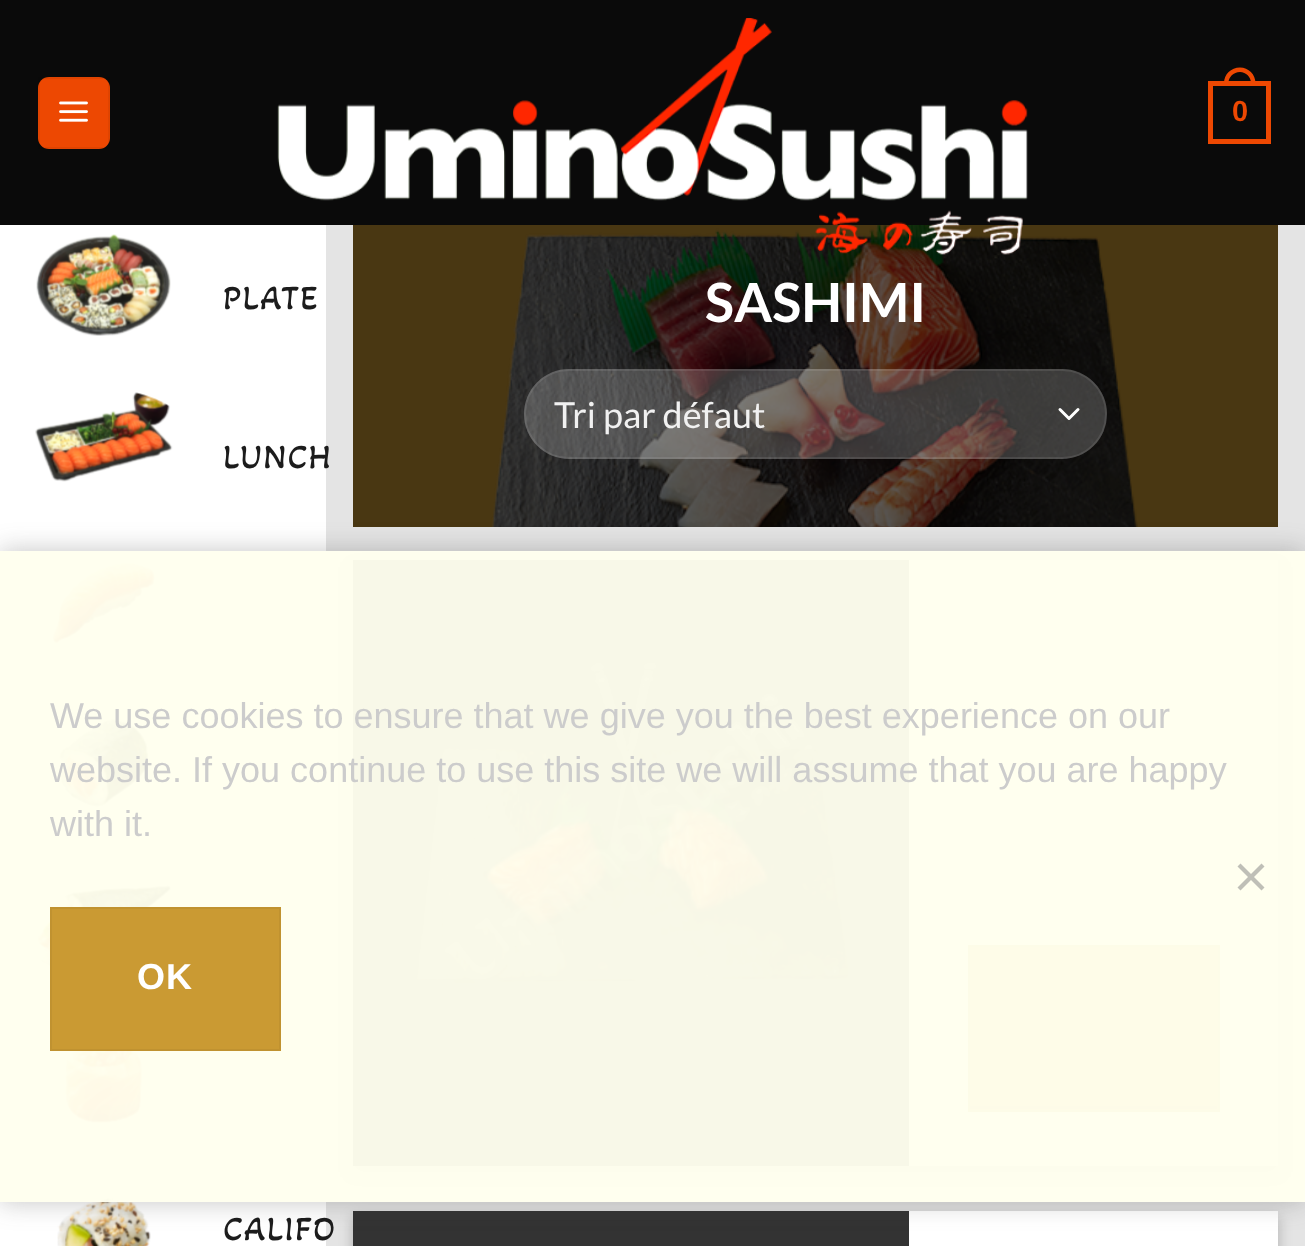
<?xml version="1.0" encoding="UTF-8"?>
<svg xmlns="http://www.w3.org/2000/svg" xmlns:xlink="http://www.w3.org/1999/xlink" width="1305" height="1246">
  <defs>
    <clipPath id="clip1"><rect x="970" y="947" width="247" height="162" /></clipPath>
    <clipPath id="clip2"><path d="M 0 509 h 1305 v 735 h -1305 z m 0 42 h 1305 v 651 h -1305 z" clip-rule="evenodd" /></clipPath>
  </defs>
  <rect width="100%" height="100%" fill="#ffffff" />
  <rect width="1305" height="225" fill="#0a0a0a" />
  <rect x="38" y="77" width="72" height="72" rx="11" fill="#ed4802" />
  <rect x="39" y="78" width="70" height="70" fill="none" stroke="#000000" stroke-opacity="0.05" stroke-width="2" />
  <image x="59" y="101" width="29" height="21" xlink:href="image1.png" />
  <rect x="326" y="225" width="979" height="1021" fill="#e4e4e4" />
  <rect x="353" y="225" width="925" height="302" fill="#493712" />
  <image x="491" y="225" width="647" height="302" xlink:href="image10.png" />
  <image x="277" y="18" width="751" height="237" xlink:href="image2.png" />
  <rect x="1210.5" y="83.5" width="58" height="58" fill="none" stroke="#ed4802" stroke-width="5" />
  <path d="M 1240 67.5 c 8.5 0 15.5 7 15.5 15.5 v 2.5 h -31.5 v -2.5 c 0 -8.5 7 -15.5 16 -15.5 z m 0 4.5 c 6 0 11 5 11 11 v 2.5 h -22.5 v -2.5 c 0 -6 5 -11 11.5 -11 z" fill="#ed4802" fill-rule="evenodd" />
  <image x="36" y="234" width="135" height="102" xlink:href="image3.png" />
  <image x="35" y="392" width="138" height="90" xlink:href="image4.png" />
  <image x="52" y="562" width="103" height="82" xlink:href="image5.png" />
  <image x="59" y="718" width="90" height="90" xlink:href="image6.png" />
  <image x="36" y="885" width="135" height="82" xlink:href="image7.png" />
  <image x="65" y="1051" width="78" height="73" xlink:href="image8.png" />
  <image x="57" y="1197" width="94" height="49" xlink:href="image9.png" />
  <rect x="524" y="369" width="583" height="90" rx="45" fill="#ffffff" fill-opacity="0.2" />
  <path d="M 1060 409.5 l 9 9 l 9 -9" fill="none" stroke="#ffffff" stroke-width="3" stroke-linecap="round" stroke-linejoin="round" />
  <rect x="525" y="370" width="581" height="88" rx="44" fill="none" stroke="#ffffff" stroke-opacity="0.09" stroke-width="2" />
  <rect x="353" y="567" width="925" height="605" fill="#000000" fill-opacity="0.23" filter="blur(7px)" />
  <rect x="362" y="576" width="907" height="587" fill="#000000" fill-opacity="0.16" filter="blur(7px)" />
  <rect x="909" y="560" width="369" height="606" fill="#ffffff" />
  <rect x="353" y="560" width="556" height="606" fill="#333333" />
  <image x="417" y="663" width="434" height="322" xlink:href="image11.png" />
  <rect x="969" y="946" width="250" height="165" fill="#ca9a33" stroke="#c09230" stroke-width="2" />
  <g clip-path="url(#clip1)">
    <path d="M 747 724 h 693 v 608 h -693 z m 222 220 h 248 v 162 h -248 z" fill="#ac832b" fill-rule="evenodd" />
  </g>
  <rect x="353" y="1217" width="925" height="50" fill="#000000" fill-opacity="0.23" filter="blur(7px)" />
  <rect x="909" y="1211" width="369" height="35" fill="#ffffff" />
  <rect x="353" y="1211" width="556" height="35" fill="#333333" />
  <g clip-path="url(#clip2)">
    <rect y="551" width="1305" height="651" fill="#3a3a3a" fill-opacity="0.3" filter="blur(13.5px)" />
  </g>
  <rect y="551" width="1305" height="651" fill="#ffffee" fill-opacity="0.97" />
  <path d="M 1261.5 863.5 l 3 3 l -24 24 l -3 -3 z" fill="#bfbfb7" />
  <path d="M 1237.5 866.5 l 3 -3 l 24 24 l -3 3 z" fill="#bfbfb7" />
  <rect x="51" y="908" width="229" height="142" fill="#ca9a33" stroke="#c09230" stroke-width="2" />
  <text x="1232" y="121" style="font-family: Liberation Sans; font-size: 29px; font-weight: bold; fill: #ed4802">0</text>
  <text x="223" y="309" style="font-family: Akaya Kanadaka; font-size: 34.5px; letter-spacing: 1.75px; fill: #1c1c1c">PLATE</text>
  <text x="223" y="468" style="font-family: Akaya Kanadaka; font-size: 34.5px; letter-spacing: 1.75px; fill: #1c1c1c">LUNCH</text>
  <text x="223" y="1240" style="font-family: Akaya Kanadaka; font-size: 34.5px; letter-spacing: 1.75px; fill: #1c1c1c">CALIFO</text>
  <text x="705" y="322" style="font-family: Lato; font-size: 54px; font-weight: bold; fill: #ffffff">SASHIMI</text>
  <text x="554" y="428" style="font-family: Lato; font-size: 36px; fill: #f1f1f1">Tri par défaut</text>
  <text x="50" y="728" style="font-family: Liberation Sans; font-size: 36px; fill: #cccccc">We use cookies to ensure that we give you the best experience on our</text>
  <text x="50" y="782" style="font-family: Liberation Sans; font-size: 36px; fill: #cccccc">website. If you continue to use this site we will assume that you are happy</text>
  <text x="50" y="836" style="font-family: Liberation Sans; font-size: 36px; fill: #cccccc">with it.</text>
  <text x="137" y="989" style="font-family: Liberation Sans; font-size: 36px; font-weight: bold; letter-spacing: 1px; fill: #ffffff">OK</text>
</svg>
